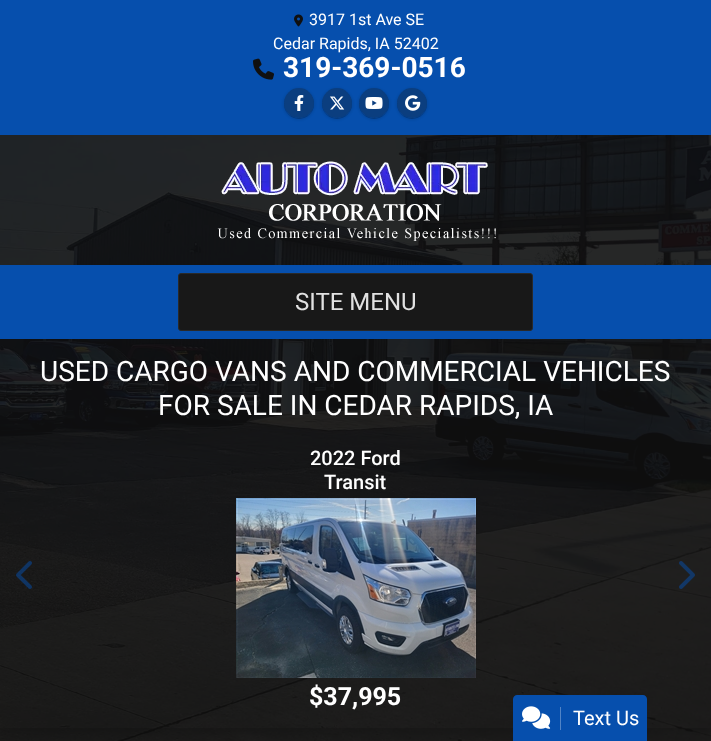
<?xml version="1.0" encoding="UTF-8"?>
<svg xmlns="http://www.w3.org/2000/svg" xmlns:xlink="http://www.w3.org/1999/xlink" width="711" height="741">
  <defs>
    <clipPath id="clip1"><path d="M 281 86 h 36 v 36 h -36 z m 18 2 c 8.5 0 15 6.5 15 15 c 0 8.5 -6.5 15 -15 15 c -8.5 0 -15 -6.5 -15 -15 c 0 -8.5 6.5 -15 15 -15 z" clip-rule="evenodd" /></clipPath>
    <clipPath id="clip2"><path d="M 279 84 h 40 v 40 h -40 z m 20 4 c 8.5 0 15 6.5 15 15 c 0 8.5 -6.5 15 -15 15 c -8.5 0 -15 -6.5 -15 -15 c 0 -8.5 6.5 -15 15 -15 z" clip-rule="evenodd" /></clipPath>
    <clipPath id="clip3"><path d="M 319 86 h 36 v 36 h -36 z m 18 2 c 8.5 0 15 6.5 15 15 c 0 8.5 -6.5 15 -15 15 c -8.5 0 -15 -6.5 -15 -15 c 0 -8.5 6.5 -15 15 -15 z" clip-rule="evenodd" /></clipPath>
    <clipPath id="clip4"><path d="M 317 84 h 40 v 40 h -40 z m 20 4 c 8.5 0 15 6.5 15 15 c 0 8.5 -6.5 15 -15 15 c -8.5 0 -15 -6.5 -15 -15 c 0 -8.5 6.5 -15 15 -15 z" clip-rule="evenodd" /></clipPath>
    <clipPath id="clip5"><path d="M 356 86 h 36 v 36 h -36 z m 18 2 c 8.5 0 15 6.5 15 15 c 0 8.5 -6.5 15 -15 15 c -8.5 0 -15 -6.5 -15 -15 c 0 -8.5 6.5 -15 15 -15 z" clip-rule="evenodd" /></clipPath>
    <clipPath id="clip6"><path d="M 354 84 h 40 v 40 h -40 z m 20 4 c 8.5 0 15 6.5 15 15 c 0 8.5 -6.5 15 -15 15 c -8.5 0 -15 -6.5 -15 -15 c 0 -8.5 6.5 -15 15 -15 z" clip-rule="evenodd" /></clipPath>
    <clipPath id="clip7"><path d="M 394 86 h 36 v 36 h -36 z m 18 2 c 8.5 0 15 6.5 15 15 c 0 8.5 -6.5 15 -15 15 c -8.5 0 -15 -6.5 -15 -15 c 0 -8.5 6.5 -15 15 -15 z" clip-rule="evenodd" /></clipPath>
    <clipPath id="clip8"><path d="M 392 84 h 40 v 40 h -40 z m 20 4 c 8.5 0 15 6.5 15 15 c 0 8.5 -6.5 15 -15 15 c -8.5 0 -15 -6.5 -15 -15 c 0 -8.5 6.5 -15 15 -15 z" clip-rule="evenodd" /></clipPath>
    <clipPath id="clip9"><rect x="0" y="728" width="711" height="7" /></clipPath>
    <clipPath id="clip10"><rect x="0" y="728" width="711" height="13" /></clipPath>
  </defs>
  <rect width="100%" height="100%" fill="#ffffff" />
  <image x="0" y="135" width="711" height="606" xlink:href="image1.png" />
  <rect y="135" width="711" height="130" fill="#101010" fill-opacity="0.9" />
  <rect width="711" height="135" fill="#064fad" />
  <image x="294" y="14" width="9" height="13" xlink:href="image2.png" />
  <image x="253" y="58" width="21" height="22" xlink:href="image3.png" />
  <g clip-path="url(#clip1)">
    <rect x="284" y="89" width="30" height="30" rx="15" fill="#000000" fill-opacity="0.2" filter="blur(0.5px)" />
  </g>
  <g clip-path="url(#clip2)">
    <rect x="283" y="88" width="32" height="32" rx="16" fill="#000000" fill-opacity="0.1" filter="blur(1px)" />
  </g>
  <circle cx="299" cy="103" r="15" fill="#181818" fill-opacity="0.3" />
  <image x="294" y="95" width="10" height="16" xlink:href="image4.png" />
  <g clip-path="url(#clip3)">
    <rect x="322" y="89" width="30" height="30" rx="15" fill="#000000" fill-opacity="0.2" filter="blur(0.5px)" />
  </g>
  <g clip-path="url(#clip4)">
    <rect x="321" y="88" width="32" height="32" rx="16" fill="#000000" fill-opacity="0.1" filter="blur(1px)" />
  </g>
  <circle cx="337" cy="103" r="15" fill="#181818" fill-opacity="0.3" />
  <image x="330" y="96" width="15" height="14" xlink:href="image5.png" />
  <g clip-path="url(#clip5)">
    <rect x="359" y="89" width="30" height="30" rx="15" fill="#000000" fill-opacity="0.2" filter="blur(0.5px)" />
  </g>
  <g clip-path="url(#clip6)">
    <rect x="358" y="88" width="32" height="32" rx="16" fill="#000000" fill-opacity="0.1" filter="blur(1px)" />
  </g>
  <circle cx="374" cy="103" r="15" fill="#181818" fill-opacity="0.3" />
  <image x="365" y="97" width="18" height="12" xlink:href="image6.png" />
  <g clip-path="url(#clip7)">
    <rect x="397" y="89" width="30" height="30" rx="15" fill="#000000" fill-opacity="0.2" filter="blur(0.5px)" />
  </g>
  <g clip-path="url(#clip8)">
    <rect x="396" y="88" width="32" height="32" rx="16" fill="#000000" fill-opacity="0.1" filter="blur(1px)" />
  </g>
  <circle cx="412" cy="103" r="15" fill="#181818" fill-opacity="0.3" />
  <image x="405" y="95" width="16" height="16" xlink:href="image7.png" />
  <image x="217" y="161" width="279" height="80" xlink:href="image8.png" />
  <g clip-path="url(#clip9)">
    <rect y="344" width="711" height="389" fill="#000000" fill-opacity="0.1" filter="blur(2.5px)" />
  </g>
  <g clip-path="url(#clip10)">
    <rect y="349" width="711" height="389" fill="#000000" fill-opacity="0.2" filter="blur(5px)" />
  </g>
  <rect y="265" width="711" height="74" fill="#064fad" />
  <rect x="178.5" y="273.5" width="354" height="57" rx="2.5" fill="#181818" stroke="#292929" />
  <rect y="339" width="711" height="389" fill="#101010" fill-opacity="0.9" />
  <image x="16" y="561" width="16" height="28" xlink:href="image9.png" />
  <image x="236" y="498" width="240" height="180" xlink:href="image10.png" />
  <image x="679" y="561" width="16" height="28" xlink:href="image11.png" />
  <rect y="728" width="711" height="13" fill="#101010" fill-opacity="0.9" />
  <path d="M 517 695 h 126 c 2 0 4 2 4 4 v 42 h -134 v -42 c 0 -2 2 -4 4 -4 z" fill="#064fad" />
  <rect x="560" y="707" width="1" height="23" fill="#5184c6" />
  <image x="522" y="706" width="29" height="23" xlink:href="image12.png" />
  <text x="309" y="25" style="font-family: Roboto; font-size: 16px; fill: #ffffff">3917 1st Ave SE</text>
  <text x="273" y="49" style="font-family: Roboto; font-size: 16px; fill: #ffffff">Cedar Rapids, IA 52402</text>
  <text x="283" y="77" style="font-family: Roboto; font-size: 28px; font-weight: bold; fill: #ffffff">319-369-0516</text>
  <text x="295" y="310" style="font-family: Roboto; font-size: 24px; fill: #e1e1e1">SITE MENU</text>
  <text x="40" y="381" style="font-family: Roboto; font-size: 28px; fill: #ffffff">USED CARGO VANS AND COMMERCIAL VEHICLES</text>
  <text x="158" y="415" style="font-family: Roboto; font-size: 28px; fill: #ffffff">FOR SALE IN CEDAR RAPIDS, IA</text>
  <text x="310" y="465" style="font-family: Roboto; font-size: 20px; font-weight: 500; fill: #ffffff">2022 Ford</text>
  <text x="324" y="489" style="font-family: Roboto; font-size: 20px; font-weight: 500; fill: #ffffff">Transit</text>
  <text x="309" y="705" style="font-family: Roboto; font-size: 25px; font-weight: bold; fill: #ffffff">$37,995</text>
  <text x="573" y="725" style="font-family: Roboto; font-size: 20px; fill: #ffffff">Text Us</text>
</svg>
